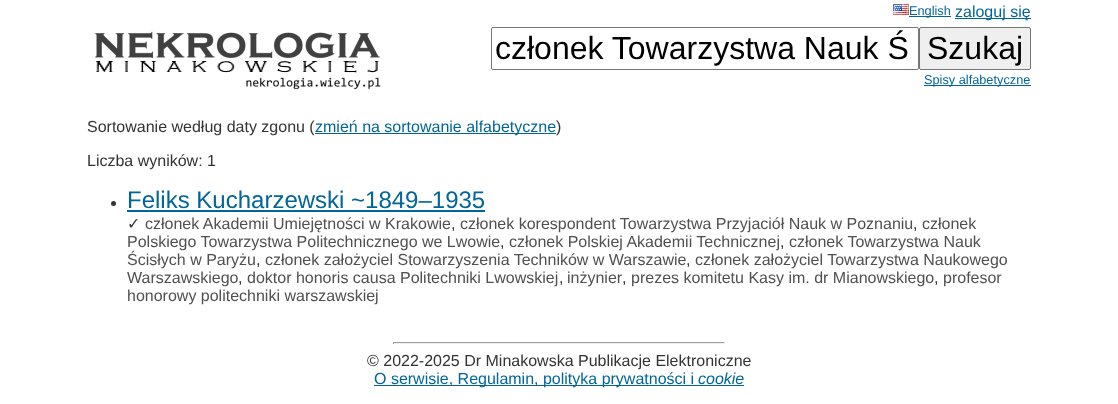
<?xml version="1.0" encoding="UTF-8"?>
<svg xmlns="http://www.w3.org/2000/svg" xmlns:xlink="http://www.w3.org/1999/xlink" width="1118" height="404">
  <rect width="100%" height="100%" fill="#ffffff" />
  <image x="893" y="4" width="16" height="11" xlink:href="image1.png" />
  <rect x="909" y="16" width="42" height="1" fill="#006699" />
  <rect x="955" y="18" width="76" height="1" fill="#006699" />
  <image x="94" y="31" width="287" height="59" xlink:href="image2.png" />
  <rect x="491.5" y="27.5" width="427" height="42" rx="1.5" fill="none" stroke="#767676" />
  <rect x="919.5" y="27.5" width="111" height="42" rx="1.5" fill="#efefef" stroke="#767676" />
  <rect x="924" y="85" width="107" height="1" fill="#006699" />
  <rect x="315" y="133" width="241" height="1" fill="#006699" />
  <circle cx="113.5" cy="203.5" r="2.5" fill="#333333" />
  <rect x="127" y="210" width="358" height="2" fill="#006699" />
  <rect x="393" y="342" width="332" height="1" fill="#9f9f9f" />
  <rect x="724" y="342" width="1" height="2" fill="#eeeeee" />
  <rect x="393" y="343" width="332" height="1" fill="#eeeeee" />
  <rect x="393" y="342" width="1" height="2" fill="#9f9f9f" />
  <rect x="374" y="385" width="370" height="1" fill="#006699" />
  <text x="909" y="15" style="font-family: Liberation Sans; font-size: 12.75px; fill: #006699">English</text>
  <text x="955" y="17" style="font-family: Liberation Sans; font-size: 16px; fill: #006699">zaloguj się</text>
  <text x="495" y="59" style="font-family: Liberation Sans; font-size: 32px; fill: #000000">członek Towarzystwa Nauk Ś</text>
  <text x="927" y="59" style="font-family: Liberation Sans; font-size: 32px; fill: #000000">Szukaj</text>
  <text x="924" y="84" style="font-family: Liberation Sans; font-size: 12.75px; fill: #006699">Spisy alfabetyczne</text>
  <text x="87" y="132" style="font-family: Liberation Sans; font-size: 16px; fill: #333333">Sortowanie według daty zgonu (</text>
  <text x="315" y="132" style="font-family: Liberation Sans; font-size: 16px; fill: #006699">zmień na sortowanie alfabetyczne</text>
  <text x="556" y="132" style="font-family: Liberation Sans; font-size: 16px; fill: #333333">)</text>
  <text x="87" y="166" style="font-family: Liberation Sans; font-size: 16px; fill: #333333">Liczba wyników: 1</text>
  <text x="127" y="208" style="font-family: Liberation Sans; font-size: 24px; fill: #006699">Feliks Kucharzewski ~1849–1935</text>
  <text x="127" y="229" style="font-family: DejaVu Sans; font-size: 16px; fill: #333333">✓</text>
  <text x="145" y="229" style="font-family: Liberation Sans; font-size: 16px; fill: #505050">członek Akademii Umiejętności w Krakowie</text>
  <text x="460" y="229" style="font-family: Liberation Sans; font-size: 16px; fill: #505050">członek korespondent Towarzystwa Przyjaciół Nauk w Poznaniu</text>
  <text x="922" y="229" style="font-family: Liberation Sans; font-size: 16px; fill: #505050">członek</text>
  <text x="451" y="229" style="font-family: Liberation Sans; font-size: 16px; fill: #333333">,</text>
  <text x="913" y="229" style="font-family: Liberation Sans; font-size: 16px; fill: #333333">,</text>
  <text x="127" y="247" style="font-family: Liberation Sans; font-size: 16px; fill: #505050">Polskiego Towarzystwa Politechnicznego we Lwowie</text>
  <text x="500" y="247" style="font-family: Liberation Sans; font-size: 16px; fill: #333333">,</text>
  <text x="509" y="247" style="font-family: Liberation Sans; font-size: 16px; fill: #505050">członek Polskiej Akademii Technicznej</text>
  <text x="780" y="247" style="font-family: Liberation Sans; font-size: 16px; fill: #333333">,</text>
  <text x="789" y="247" style="font-family: Liberation Sans; font-size: 16px; fill: #505050">członek Towarzystwa Nauk</text>
  <text x="127" y="265" style="font-family: Liberation Sans; font-size: 16px; fill: #505050">Ścisłych w Paryżu</text>
  <text x="256" y="265" style="font-family: Liberation Sans; font-size: 16px; fill: #333333">,</text>
  <text x="265" y="265" style="font-family: Liberation Sans; font-size: 16px; fill: #505050">członek założyciel Stowarzyszenia Techników w Warszawie</text>
  <text x="686" y="265" style="font-family: Liberation Sans; font-size: 16px; fill: #333333">,</text>
  <text x="695" y="265" style="font-family: Liberation Sans; font-size: 16px; fill: #505050">członek założyciel Towarzystwa Naukowego</text>
  <text x="127" y="283" style="font-family: Liberation Sans; font-size: 16px; fill: #505050">Warszawskiego</text>
  <text x="238" y="283" style="font-family: Liberation Sans; font-size: 16px; fill: #333333">,</text>
  <text x="247" y="283" style="font-family: Liberation Sans; font-size: 16px; fill: #505050">doktor honoris causa Politechniki Lwowskiej</text>
  <text x="559" y="283" style="font-family: Liberation Sans; font-size: 16px; fill: #333333">,</text>
  <text x="567" y="283" style="font-family: Liberation Sans; font-size: 16px; fill: #505050">inżynier</text>
  <text x="622" y="283" style="font-family: Liberation Sans; font-size: 16px; fill: #333333">,</text>
  <text x="631" y="283" style="font-family: Liberation Sans; font-size: 16px; fill: #505050">prezes komitetu Kasy im. dr Mianowskiego</text>
  <text x="934" y="283" style="font-family: Liberation Sans; font-size: 16px; fill: #333333">,</text>
  <text x="943" y="283" style="font-family: Liberation Sans; font-size: 16px; fill: #505050">profesor</text>
  <text x="127" y="301" style="font-family: Liberation Sans; font-size: 16px; fill: #505050">honorowy politechniki warszawskiej</text>
  <text x="367" y="366" style="font-family: Liberation Sans; font-size: 16px; fill: #333333">© 2022-2025 Dr Minakowska Publikacje Elektroniczne</text>
  <text x="374" y="384" style="font-family: Liberation Sans; font-size: 16px; fill: #006699">O serwisie, Regulamin, polityka prywatności i</text>
  <text x="698" y="384" style="font-family: Liberation Sans; font-size: 16px; font-style: italic; fill: #006699">cookie</text>
</svg>
